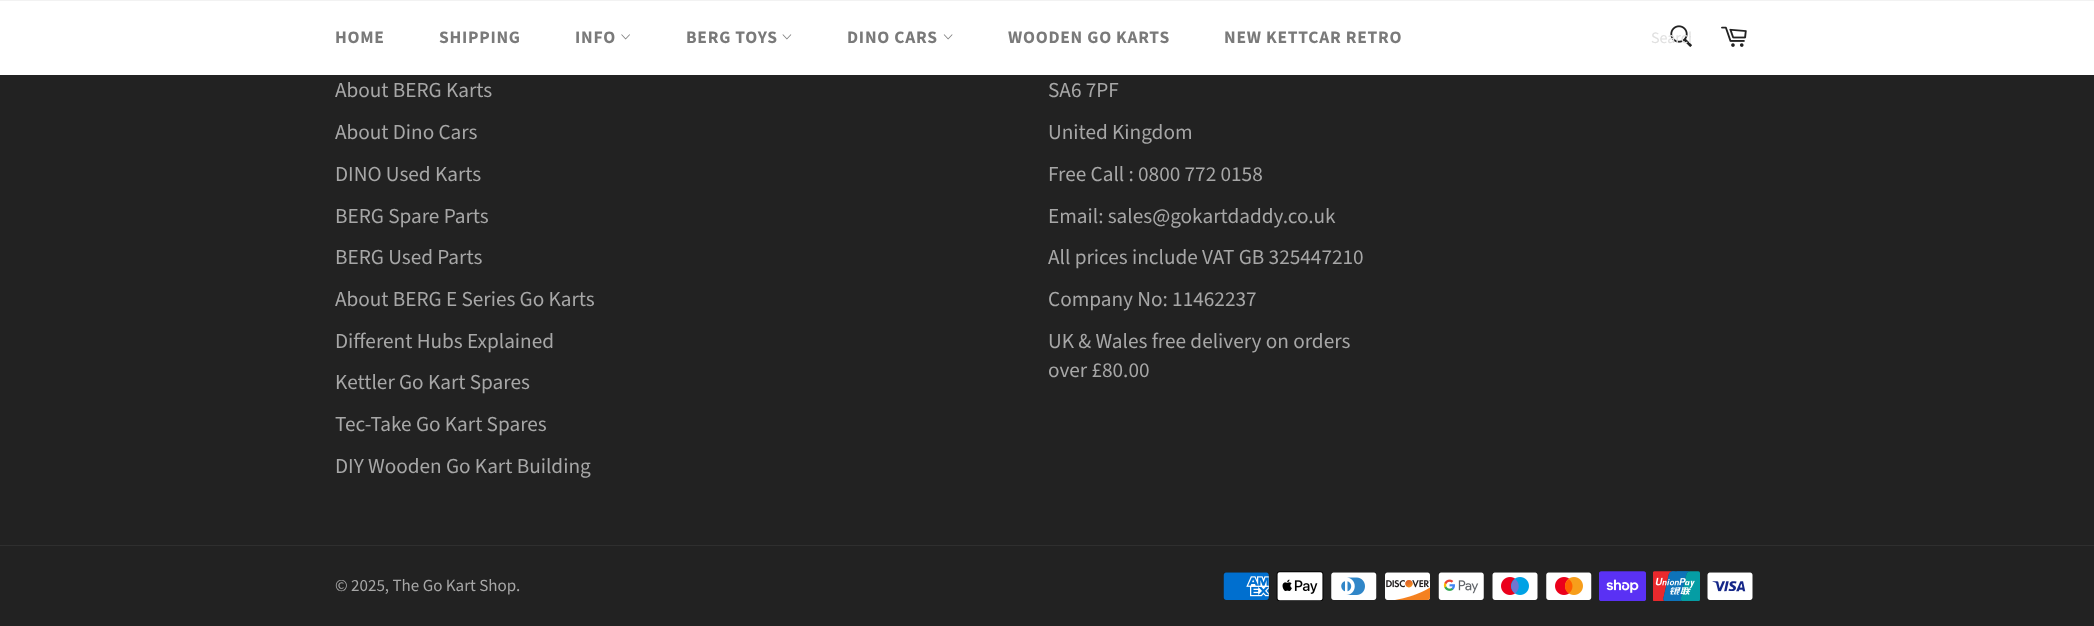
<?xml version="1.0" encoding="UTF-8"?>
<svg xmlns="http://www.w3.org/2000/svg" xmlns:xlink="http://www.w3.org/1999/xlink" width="2094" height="626">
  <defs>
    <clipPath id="clip1"><rect x="1651" y="28" width="40" height="22" /></clipPath>
  </defs>
  <rect width="100%" height="100%" fill="#222222" />
  <rect y="1" width="2094" height="74" fill="#ffffff" />
  <rect width="2094" height="1" fill="#f2f2f2" />
  <image x="621" y="34" width="9" height="6" xlink:href="image1.png" />
  <image x="782" y="34" width="10" height="6" xlink:href="image2.png" />
  <image x="943" y="34" width="10" height="6" xlink:href="image3.png" />
  <image x="1670" y="25" width="22" height="22" xlink:href="image4.png" />
  <image x="1721" y="26" width="26" height="21" xlink:href="image5.png" />
  <rect y="545" width="2094" height="1" fill="#2f2f2f" />
  <image x="1223" y="572" width="46" height="28" xlink:href="image6.png" />
  <image x="1276" y="571" width="48" height="30" xlink:href="image7.png" />
  <image x="1331" y="572" width="46" height="28" xlink:href="image8.png" />
  <image x="1385" y="572" width="45" height="28" xlink:href="image9.png" />
  <image x="1438" y="572" width="46" height="28" xlink:href="image10.png" />
  <image x="1492" y="572" width="46" height="28" xlink:href="image11.png" />
  <image x="1546" y="572" width="46" height="28" xlink:href="image12.png" />
  <image x="1599" y="571" width="47" height="30" xlink:href="image13.png" />
  <image x="1653" y="571" width="47" height="30" xlink:href="image14.png" />
  <image x="1707" y="572" width="46" height="28" xlink:href="image15.png" />
  <text x="335" y="43" style="font-family: Source Sans Pro; font-size: 17.5px; font-weight: bold; letter-spacing: 0.75px; fill: #7a7a7a">HOME</text>
  <text x="439" y="43" style="font-family: Source Sans Pro; font-size: 17.5px; font-weight: bold; letter-spacing: 0.75px; fill: #7a7a7a">SHIPPING</text>
  <text x="575" y="43" style="font-family: Source Sans Pro; font-size: 17.5px; font-weight: bold; letter-spacing: 0.75px; fill: #7a7a7a">INFO</text>
  <text x="686" y="43" style="font-family: Source Sans Pro; font-size: 17.5px; font-weight: bold; letter-spacing: 0.75px; fill: #7a7a7a">BERG TOYS</text>
  <text x="847" y="43" style="font-family: Source Sans Pro; font-size: 17.5px; font-weight: bold; letter-spacing: 0.75px; fill: #7a7a7a">DINO CARS</text>
  <text x="1008" y="43" style="font-family: Source Sans Pro; font-size: 17.5px; font-weight: bold; letter-spacing: 0.75px; fill: #7a7a7a">WOODEN GO KARTS</text>
  <text x="1224" y="43" style="font-family: Source Sans Pro; font-size: 17.5px; font-weight: bold; letter-spacing: 0.75px; fill: #7a7a7a">NEW KETTCAR RETRO</text>
  <g clip-path="url(#clip1)">
    <text x="1651" y="43" style="font-family: Source Sans Pro; font-size: 16px; fill: #e0e0e0">Search</text>
  </g>
  <text x="335" y="97" style="font-family: Source Sans Pro; font-size: 21.25px; fill: #a7a7a7">About BERG Karts</text>
  <text x="335" y="139" style="font-family: Source Sans Pro; font-size: 21.25px; fill: #a7a7a7">About Dino Cars</text>
  <text x="335" y="181" style="font-family: Source Sans Pro; font-size: 21.25px; fill: #a7a7a7">DINO Used Karts</text>
  <text x="335" y="223" style="font-family: Source Sans Pro; font-size: 21.25px; fill: #a7a7a7">BERG Spare Parts</text>
  <text x="335" y="264" style="font-family: Source Sans Pro; font-size: 21.25px; fill: #a7a7a7">BERG Used Parts</text>
  <text x="335" y="306" style="font-family: Source Sans Pro; font-size: 21.25px; fill: #a7a7a7">About BERG E Series Go Karts</text>
  <text x="335" y="348" style="font-family: Source Sans Pro; font-size: 21.25px; fill: #a7a7a7">Different Hubs Explained</text>
  <text x="335" y="389" style="font-family: Source Sans Pro; font-size: 21.25px; fill: #a7a7a7">Kettler Go Kart Spares</text>
  <text x="335" y="431" style="font-family: Source Sans Pro; font-size: 21.25px; fill: #a7a7a7">Tec-Take Go Kart Spares</text>
  <text x="335" y="473" style="font-family: Source Sans Pro; font-size: 21.25px; fill: #a7a7a7">DIY Wooden Go Kart Building</text>
  <text x="1048" y="97" style="font-family: Source Sans Pro; font-size: 21.25px; fill: #a7a7a7">SA6 7PF</text>
  <text x="1048" y="139" style="font-family: Source Sans Pro; font-size: 21.25px; fill: #a7a7a7">United Kingdom</text>
  <text x="1048" y="181" style="font-family: Source Sans Pro; font-size: 21.25px; fill: #a7a7a7">Free Call : 0800 772 0158</text>
  <text x="1048" y="223" style="font-family: Source Sans Pro; font-size: 21.25px; fill: #a7a7a7">Email: sales@gokartdaddy.co.uk</text>
  <text x="1048" y="264" style="font-family: Source Sans Pro; font-size: 21.25px; fill: #a7a7a7">All prices include VAT GB 325447210</text>
  <text x="1048" y="306" style="font-family: Source Sans Pro; font-size: 21.25px; fill: #a7a7a7">Company No: 11462237</text>
  <text x="1048" y="348" style="font-family: Source Sans Pro; font-size: 21.25px; fill: #a7a7a7">UK &amp; Wales free delivery on orders</text>
  <text x="1048" y="377" style="font-family: Source Sans Pro; font-size: 21.25px; fill: #a7a7a7">over £80.00</text>
  <text x="335" y="591" style="font-family: Source Sans Pro; font-size: 17px; fill: #a7a7a7">© 2025, The Go Kart Shop.</text>
</svg>
